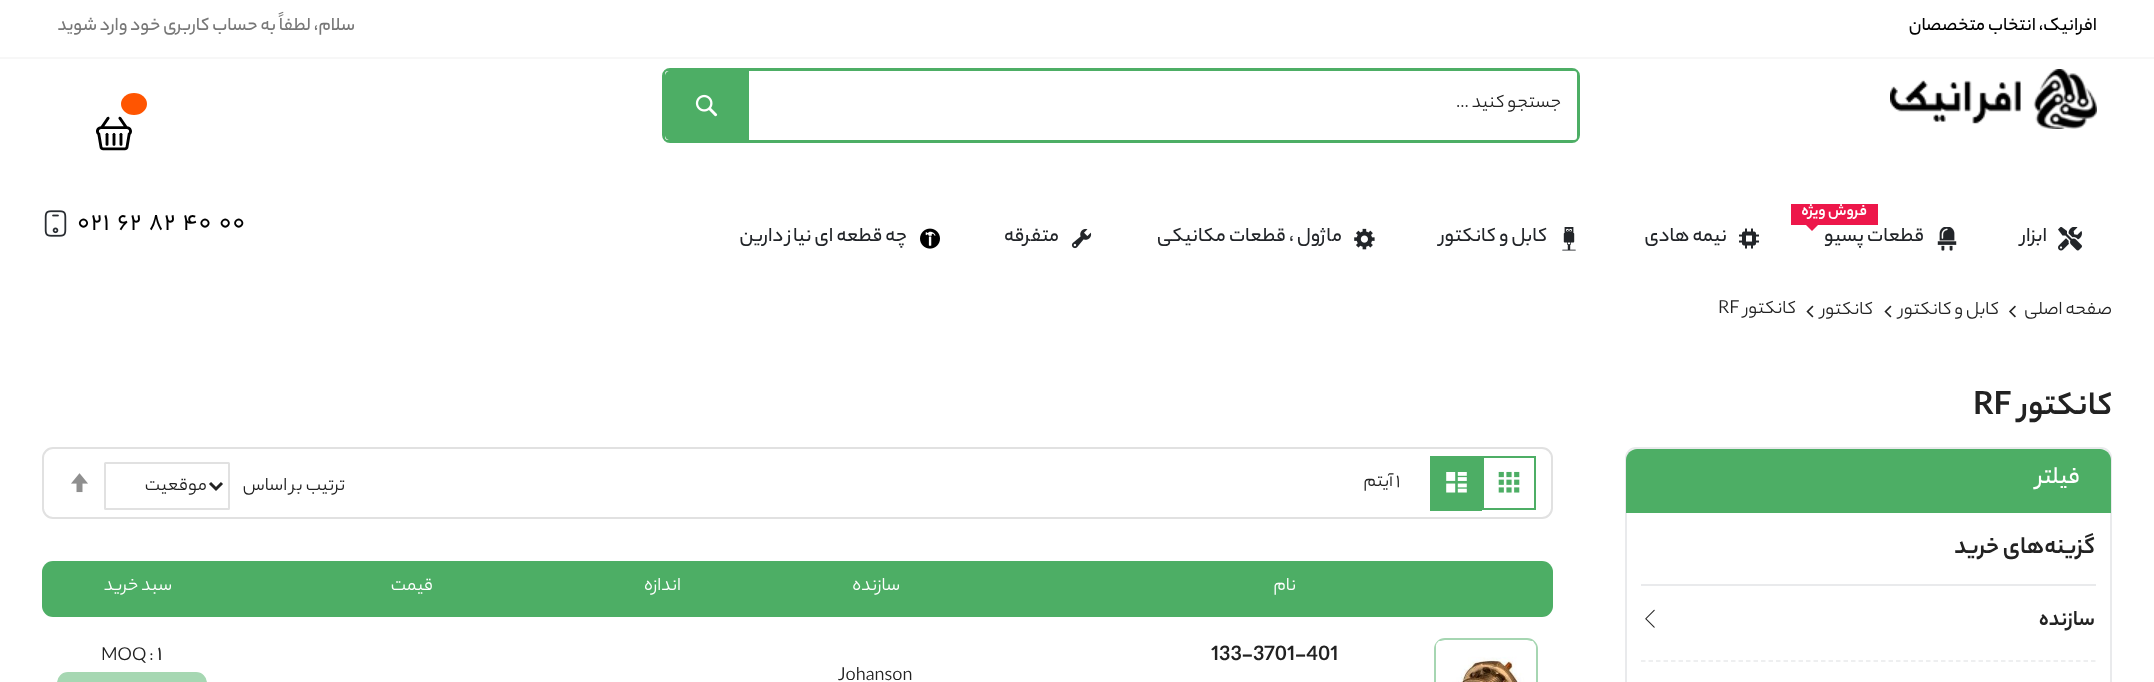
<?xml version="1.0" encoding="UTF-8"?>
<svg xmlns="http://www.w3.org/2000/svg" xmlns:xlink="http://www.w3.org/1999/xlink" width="2154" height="682">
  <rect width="100%" height="100%" fill="#ffffff" />
  <rect y="57" width="2154" height="2" fill="#f7f7f7" />
  <image x="1890" y="69" width="207" height="60" xlink:href="image1.png" />
  <rect x="663.5" y="69.5" width="915" height="72" rx="6.5" fill="none" stroke="#4dae65" stroke-width="3" />
  <rect x="665" y="71" width="912" height="69" rx="3" fill="#ffffff" />
  <path d="M 670 71 h 79 v 69 h -79 c -3 0 -5 -2 -5 -5 v -59 c 0 -3 2 -5 5 -5 z" fill="#4dae65" />
  <image x="695" y="94" width="23" height="23" xlink:href="image2.png" />
  <ellipse cx="134" cy="104" rx="13" ry="11" fill="#ff5501" />
  <image x="96" y="116" width="36" height="35" xlink:href="image3.png" />
  <image x="2058" y="227" width="24" height="24" xlink:href="image4.png" />
  <rect x="1791" y="204" width="87" height="21" fill="#ed174a" />
  <path d="M 1806 225 h 12 l -6 6 z" fill="#ed174a" />
  <image x="1937" y="227" width="20" height="24" xlink:href="image5.png" />
  <image x="1739" y="228" width="20" height="21" xlink:href="image6.png" />
  <image x="1562" y="227" width="14" height="24" xlink:href="image7.png" />
  <image x="1354" y="228" width="21" height="22" xlink:href="image8.png" />
  <image x="1071" y="228" width="21" height="21" xlink:href="image9.png" />
  <image x="920" y="228" width="20" height="21" xlink:href="image10.png" />
  <image x="44" y="210" width="23" height="27" xlink:href="image11.png" />
  <image x="2009" y="305" width="7" height="13" xlink:href="image12.png" />
  <image x="1884" y="305" width="8" height="13" xlink:href="image13.png" />
  <image x="1806" y="305" width="8" height="13" xlink:href="image13.png" />
  <rect x="1626" y="448" width="485" height="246" rx="10" fill="none" stroke="#e9eaec" stroke-width="2" />
  <path d="M 1637 449 h 463 c 6 0 11 5 11 11 v 53 h -485 v -53 c 0 -6 5 -11 11 -11 z" fill="#4dae65" />
  <rect x="1641" y="584" width="455" height="2" fill="#e9eaec" />
  <path d="M 1641 661 h 454.5" fill="none" stroke="#e9eaec" stroke-width="1.5" stroke-dasharray="4.5 3" />
  <image x="1645" y="609" width="10" height="19" xlink:href="image14.png" />
  <rect x="43" y="448" width="1509" height="70" rx="10" fill="none" stroke="#e1e1e1" stroke-width="2" />
  <rect x="1483" y="457" width="52" height="52" fill="none" stroke="#4dae65" stroke-width="2" />
  <image x="1498" y="471" width="22" height="22" xlink:href="image15.png" />
  <rect x="1430" y="456" width="52" height="55" fill="#4dae65" />
  <image x="1446" y="472" width="21" height="21" xlink:href="image16.png" />
  <rect x="105" y="463" width="124" height="46" rx="0.5" fill="none" stroke="#e1e1e1" stroke-width="2" />
  <path d="M 210 483 l 6 6 l 6 -6" fill="none" stroke="#222222" stroke-width="3" />
  <image x="71" y="473" width="17" height="20" xlink:href="image17.png" />
  <rect x="42" y="561" width="1511" height="56" rx="11" fill="#4dae65" />
  <rect x="1435" y="639" width="102" height="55" rx="10" fill="none" stroke="#a6d6b2" stroke-width="2" />
  <image x="1436" y="641" width="100" height="41" xlink:href="image18.png" />
  <rect x="58" y="673" width="148" height="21" rx="10" fill="#a6d7b2" stroke="#a6d7b2" stroke-width="2" />
  <text x="2097" y="30" style="font-family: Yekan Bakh; font-size: 19.5px; font-weight: 500; direction: rtl; fill: #000000">افرانیک، انتخاب متخصصان</text>
  <text x="355" y="30" style="font-family: Yekan Bakh; font-size: 19.5px; font-weight: 500; direction: rtl; fill: #777777">سلام، لطفاً به حساب کاربری خود وارد شوید</text>
  <text x="1561" y="107" style="font-family: Yekan Bakh; font-size: 19.5px; direction: rtl; fill: #222222">جستجو کنید ...</text>
  <text x="2047" y="241" style="font-family: Yekan Bakh; font-size: 21px; font-weight: 500; direction: rtl; fill: #222529">ابزار</text>
  <text x="1867" y="215" style="font-family: Yekan Bakh; font-size: 16.5px; font-weight: bold; direction: rtl; fill: #ffffff">فروش ویژه</text>
  <text x="1924" y="241" style="font-family: Yekan Bakh; font-size: 21px; font-weight: 500; direction: rtl; fill: #222529">قطعات پسیو</text>
  <text x="1727" y="241" style="font-family: Yekan Bakh; font-size: 21px; font-weight: 500; direction: rtl; fill: #222529">نیمه هادی</text>
  <text x="1547" y="241" style="font-family: Yekan Bakh; font-size: 21px; font-weight: 500; direction: rtl; fill: #222529">کابل و کانکتور</text>
  <text x="1342" y="241" style="font-family: Yekan Bakh; font-size: 21px; font-weight: 500; direction: rtl; fill: #222529">ماژول ، قطعات مکانیکی</text>
  <text x="1059" y="241" style="font-family: Yekan Bakh; font-size: 21px; font-weight: 500; direction: rtl; fill: #222529">متفرقه</text>
  <text x="907" y="241" style="font-family: Yekan Bakh; font-size: 21px; font-weight: 500; direction: rtl; fill: #222529">چه قطعه ای نیاز دارین</text>
  <text x="77" y="230" style="font-family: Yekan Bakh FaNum; font-size: 23.5px; letter-spacing: 0.75px; fill: #000000">021 62 82 40 00</text>
  <text x="2112" y="314" style="font-family: Yekan Bakh; font-size: 19.5px; direction: rtl; fill: #222222">صفحه اصلی</text>
  <text x="1999" y="314" style="font-family: Yekan Bakh; font-size: 19.5px; direction: rtl; fill: #222222">کابل و کانکتور</text>
  <text x="1873" y="314" style="font-family: Yekan Bakh; font-size: 19.5px; direction: rtl; fill: #222222">کانکتور</text>
  <text x="1796" y="313" style="font-family: Yekan Bakh; font-size: 19.5px; direction: rtl; fill: #222222">کانکتور</text>
  <text x="1718" y="313" style="font-family: Yekan Bakh; font-size: 19.5px; fill: #222222">RF</text>
  <text x="2112" y="414" style="font-family: Yekan Bakh; font-size: 34.5px; font-weight: bold; direction: rtl; fill: #222222">کانکتور</text>
  <text x="1973" y="414" style="font-family: Yekan Bakh; font-size: 34.5px; font-weight: bold; fill: #222222">RF</text>
  <text x="2080" y="483" style="font-family: Yekan Bakh; font-size: 25.5px; font-weight: 500; direction: rtl; fill: #ffffff">فیلتر</text>
  <text x="2095" y="553" style="font-family: Yekan Bakh; font-size: 25.5px; font-weight: bold; direction: rtl; fill: #222222">گزینه‌های خرید</text>
  <text x="2095" y="625" style="font-family: Yekan Bakh; font-size: 22.5px; font-weight: bold; direction: rtl; fill: #222222">سازنده</text>
  <text x="1396" y="486" style="font-family: Yekan Bakh; font-size: 19.5px; fill: #222222">۱</text>
  <text x="1393" y="486" style="font-family: Yekan Bakh; font-size: 19.5px; direction: rtl; fill: #222222">آیتم</text>
  <text x="345" y="490" style="font-family: Yekan Bakh; font-size: 19.5px; direction: rtl; fill: #222222">ترتیب بر اساس</text>
  <text x="207" y="490" style="font-family: Yekan Bakh; font-size: 19.5px; direction: rtl; fill: #222222">موقعیت</text>
  <text x="1296" y="590" style="font-family: Yekan Bakh; font-size: 19.5px; direction: rtl; fill: #ffffff">نام</text>
  <text x="900" y="590" style="font-family: Yekan Bakh; font-size: 19.5px; direction: rtl; fill: #ffffff">سازنده</text>
  <text x="681" y="590" style="font-family: Yekan Bakh; font-size: 19.5px; direction: rtl; fill: #ffffff">اندازه</text>
  <text x="433" y="590" style="font-family: Yekan Bakh; font-size: 19.5px; direction: rtl; fill: #ffffff">قیمت</text>
  <text x="172" y="590" style="font-family: Yekan Bakh; font-size: 19.5px; direction: rtl; fill: #ffffff">سبد خرید</text>
  <text x="1211" y="660" style="font-family: Yekan Bakh; font-size: 22.5px; font-weight: bold; fill: #222222">133-3701-401</text>
  <text x="157" y="660" style="font-family: Yekan Bakh FaNum; font-size: 19.5px; fill: #222222">1</text>
  <text x="101" y="660" style="font-family: Yekan Bakh; font-size: 19.5px; fill: #222222">MOQ :</text>
  <text x="838" y="680" style="font-family: Yekan Bakh; font-size: 19.5px; fill: #222222">Johanson</text>
</svg>
